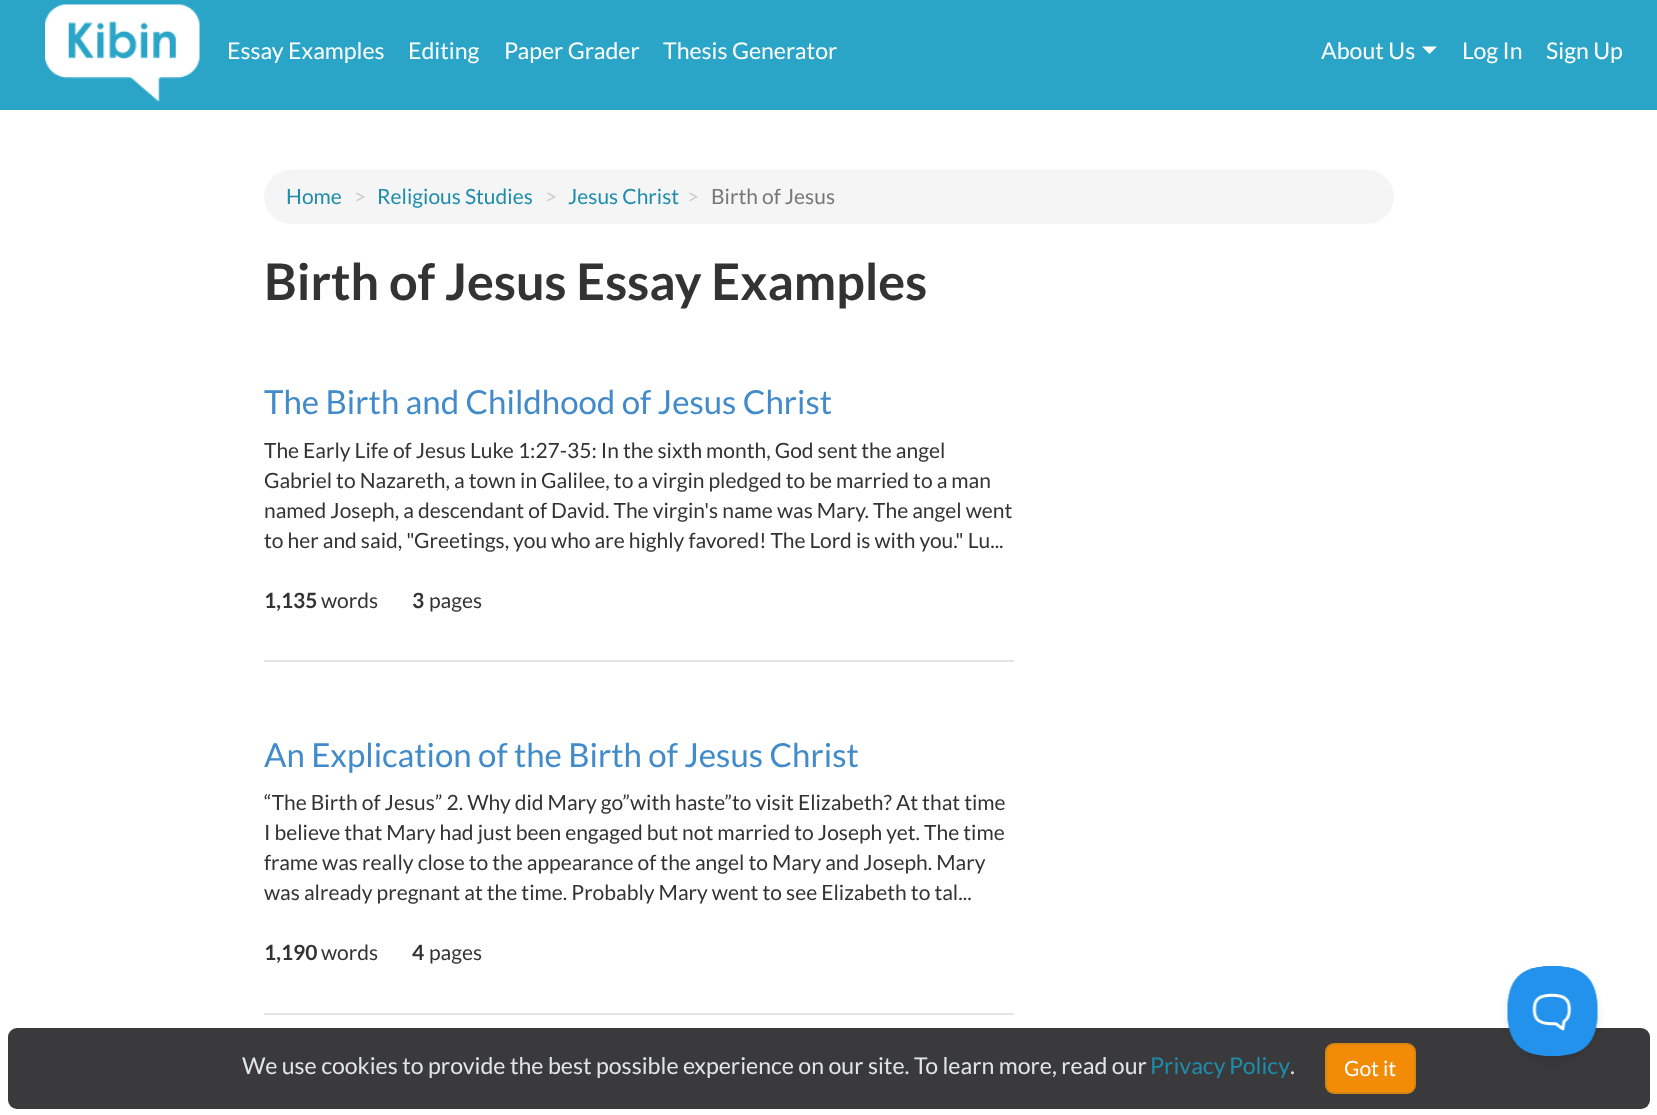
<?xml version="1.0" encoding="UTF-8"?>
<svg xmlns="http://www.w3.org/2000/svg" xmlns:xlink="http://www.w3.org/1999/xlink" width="1657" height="1115">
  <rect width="100%" height="100%" fill="#ffffff" />
  <rect width="1657" height="110" fill="#2aa5c8" />
  <image x="45" y="4" width="155" height="98" xlink:href="image1.png" />
  <path d="M 1422 46.5 h 15 l -7.5 7.5 z" fill="#ffffff" />
  <rect x="264" y="170" width="1130" height="54" rx="27" fill="#f5f5f5" />
  <rect x="264" y="660" width="750" height="2" fill="#e4e4e4" />
  <rect x="264" y="1013" width="750" height="2" fill="#e4e4e4" />
  <rect x="8" y="1028" width="1642" height="81" rx="9" fill="#17181b" fill-opacity="0.85" />
  <rect x="1326" y="1044" width="89" height="49" rx="8" fill="#f28c06" stroke="#d58512" stroke-width="2" />
  <rect x="1508" y="972" width="90" height="90" rx="45" fill="#000000" fill-opacity="0.1" filter="blur(5px)" />
  <image x="1507" y="966" width="91" height="90" xlink:href="image2.png" />
  <text x="227" y="59" style="font-family: Lato; font-size: 23.1px; fill: #ffffff">Essay Examples</text>
  <text x="408" y="59" style="font-family: Lato; font-size: 23.1px; fill: #ffffff">Editing</text>
  <text x="504" y="59" style="font-family: Lato; font-size: 23.1px; fill: #ffffff">Paper Grader</text>
  <text x="663" y="59" style="font-family: Lato; font-size: 23.1px; fill: #ffffff">Thesis Generator</text>
  <text x="1321" y="59" style="font-family: Lato; font-size: 23.1px; fill: #ffffff">About Us</text>
  <text x="1462" y="59" style="font-family: Lato; font-size: 23.1px; fill: #ffffff">Log In</text>
  <text x="1546" y="59" style="font-family: Lato; font-size: 23.1px; fill: #ffffff">Sign Up</text>
  <text x="286" y="204" style="font-family: Lato; font-size: 21px; fill: #1e8dac">Home</text>
  <text x="354" y="204" style="font-family: Lato; font-size: 21px; fill: #cccccc">&gt;</text>
  <text x="377" y="204" style="font-family: Lato; font-size: 21px; fill: #1e8dac">Religious Studies</text>
  <text x="545" y="204" style="font-family: Lato; font-size: 21px; fill: #cccccc">&gt;</text>
  <text x="568" y="204" style="font-family: Lato; font-size: 21px; fill: #1e8dac">Jesus Christ</text>
  <text x="687" y="204" style="font-family: Lato; font-size: 21px; fill: #cccccc">&gt;</text>
  <text x="711" y="204" style="font-family: Lato; font-size: 21px; fill: #777777">Birth of Jesus</text>
  <text x="264" y="300" style="font-family: Lato; font-size: 50.4px; font-weight: bold; fill: #333333">Birth of Jesus Essay Examples</text>
  <text x="264" y="414" style="font-family: Lato; font-size: 33px; fill: #428bca">The Birth and Childhood of Jesus Christ</text>
  <text x="264" y="458" style="font-family: Lato; font-size: 21px; fill: #333333">The Early Life of Jesus Luke 1:27-35: In the sixth month, God sent the angel</text>
  <text x="264" y="488" style="font-family: Lato; font-size: 21px; fill: #333333">Gabriel to Nazareth, a town in Galilee, to a virgin pledged to be married to a man</text>
  <text x="264" y="518" style="font-family: Lato; font-size: 21px; fill: #333333">named Joseph, a descendant of David. The virgin's name was Mary. The angel went</text>
  <text x="264" y="548" style="font-family: Lato; font-size: 21px; fill: #333333">to her and said, "Greetings, you who are highly favored! The Lord is with you." Lu...</text>
  <text x="264" y="608" style="font-family: Lato; font-size: 21px; font-weight: bold; fill: #333333">1,135</text>
  <text x="321" y="608" style="font-family: Lato; font-size: 21px; fill: #333333">words</text>
  <text x="412" y="608" style="font-family: Lato; font-size: 21px; font-weight: bold; fill: #333333">3</text>
  <text x="429" y="608" style="font-family: Lato; font-size: 21px; fill: #333333">pages</text>
  <text x="264" y="767" style="font-family: Lato; font-size: 33px; fill: #428bca">An Explication of the Birth of Jesus Christ</text>
  <text x="264" y="810" style="font-family: Lato; font-size: 21px; fill: #333333">“The Birth of Jesus” 2. Why did Mary go”with haste”to visit Elizabeth? At that time</text>
  <text x="264" y="840" style="font-family: Lato; font-size: 21px; fill: #333333">I believe that Mary had just been engaged but not married to Joseph yet. The time</text>
  <text x="264" y="870" style="font-family: Lato; font-size: 21px; fill: #333333">frame was really close to the appearance of the angel to Mary and Joseph. Mary</text>
  <text x="264" y="900" style="font-family: Lato; font-size: 21px; fill: #333333">was already pregnant at the time. Probably Mary went to see Elizabeth to tal...</text>
  <text x="264" y="960" style="font-family: Lato; font-size: 21px; font-weight: bold; fill: #333333">1,190</text>
  <text x="321" y="960" style="font-family: Lato; font-size: 21px; fill: #333333">words</text>
  <text x="412" y="960" style="font-family: Lato; font-size: 21px; font-weight: bold; fill: #333333">4</text>
  <text x="429" y="960" style="font-family: Lato; font-size: 21px; fill: #333333">pages</text>
  <text x="242" y="1074" style="font-family: Lato; font-size: 23.1px; fill: #e1e5ea">We use cookies to provide the best possible experience on our site. To learn more, read our</text>
  <text x="1150" y="1074" word-spacing="-1" style="font-family: Lato; font-size: 23.1px; fill: #1e8dac">Privacy Policy</text>
  <text x="1290" y="1074" style="font-family: Lato; font-size: 23.1px; fill: #e1e5ea">.</text>
  <text x="1344" y="1076" style="font-family: Lato; font-size: 21px; fill: #ffffff">Got it</text>
</svg>
